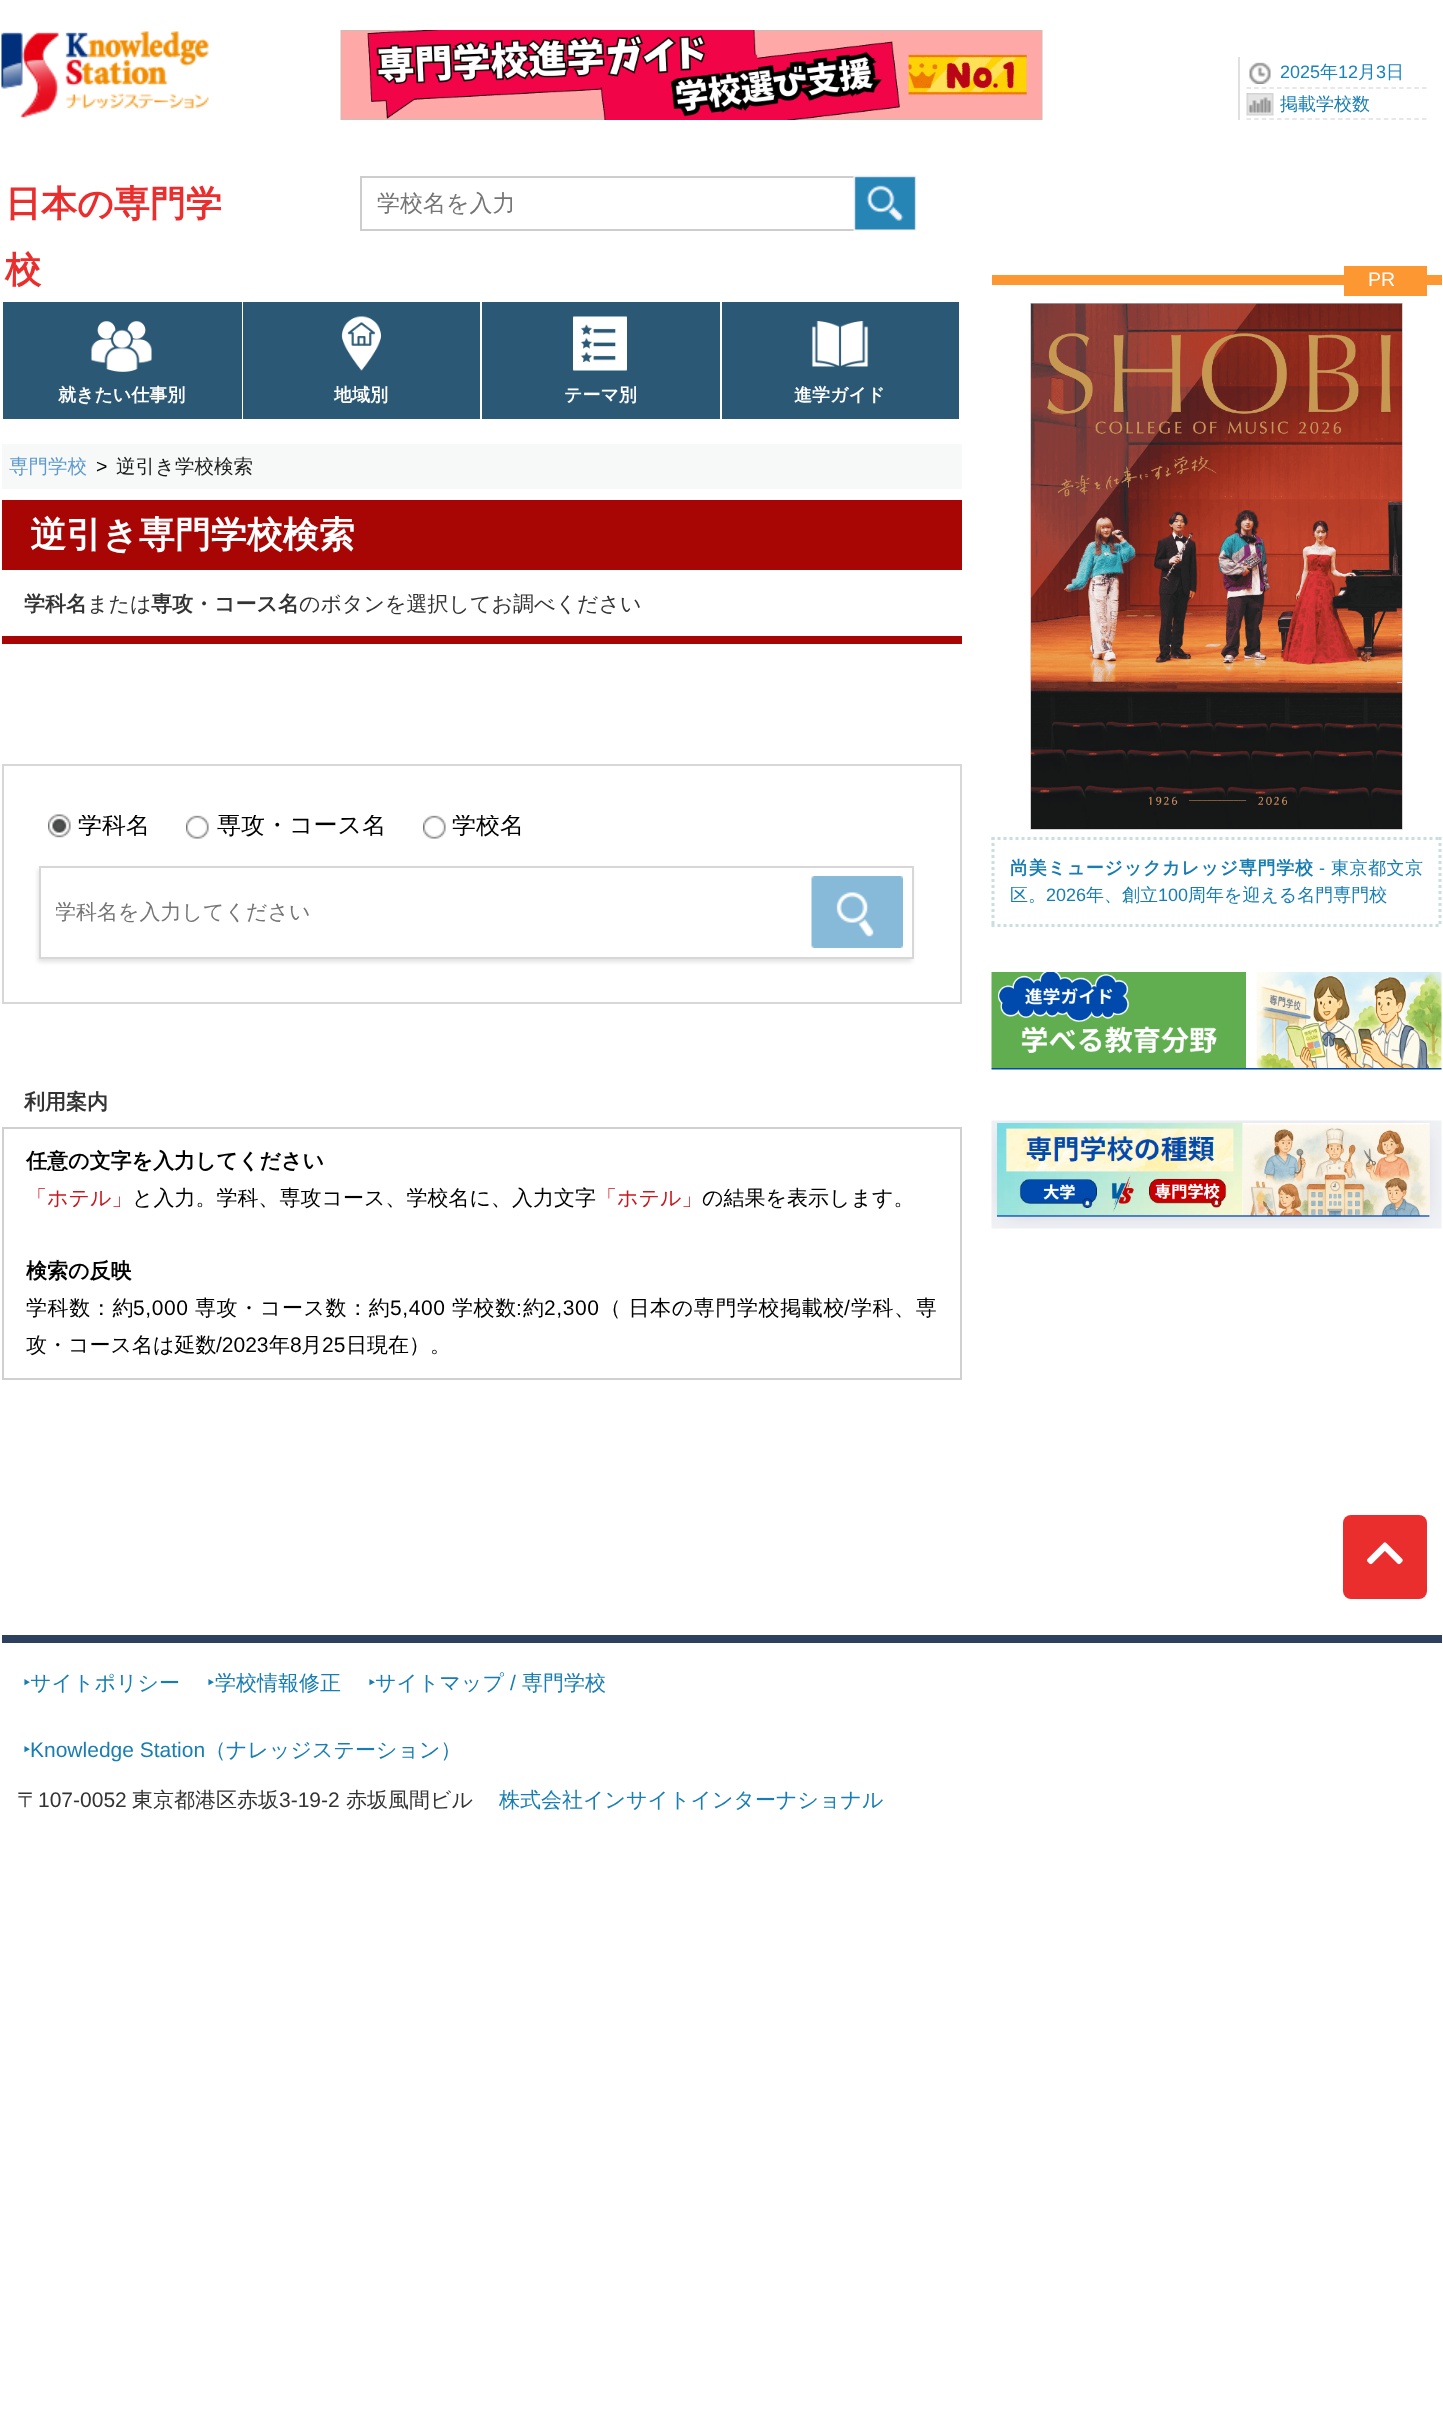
<?xml version="1.0" encoding="UTF-8"?>
<svg xmlns="http://www.w3.org/2000/svg" xmlns:xlink="http://www.w3.org/1999/xlink" width="1443" height="2418">
  <defs>
    <clipPath id="clip1"><rect x="48" y="815" width="102" height="24" /></clipPath>
    <clipPath id="clip2"><rect x="186" y="815" width="200" height="24" /></clipPath>
    <clipPath id="clip3"><rect x="423" y="815" width="102" height="24" /></clipPath>
    <clipPath id="clip4"><rect x="56" y="900" width="751" height="27" /></clipPath>
  </defs>
  <rect width="100%" height="100%" fill="#ffffff" />
  <image x="1" y="31" width="208" height="87" xlink:href="image1.png" />
  <image x="340" y="30" width="703" height="90" xlink:href="image2.png" />
  <rect x="1238" y="57" width="2" height="63" fill="#e0e0e0" />
  <image x="1249" y="62" width="22" height="22" xlink:href="image3.png" />
  <path d="M 1246.5 88 h 180" fill="none" stroke="#e0e0e0" stroke-width="1.5" stroke-dasharray="4.5 3.13" />
  <image x="1246" y="93" width="28" height="23" xlink:href="image4.png" />
  <path d="M 1246.5 119 h 180" fill="none" stroke="#e0e0e0" stroke-width="1.5" stroke-dasharray="4.5 3.13" />
  <rect x="361" y="177" width="495" height="53" fill="none" stroke="#cdcdcd" stroke-width="2" />
  <image x="853" y="175" width="64" height="56" xlink:href="image5.png" />
  <rect x="3" y="302" width="239" height="117" fill="#2a5875" />
  <image x="91" y="321" width="61" height="51" xlink:href="image6.png" />
  <rect x="243" y="302" width="237" height="117" fill="#2a5875" />
  <image x="341" y="316" width="40" height="55" xlink:href="image7.png" />
  <rect x="482" y="302" width="238" height="117" fill="#2a5875" />
  <image x="573" y="316" width="54" height="55" xlink:href="image8.png" />
  <rect x="722" y="302" width="237" height="117" fill="#2a5875" />
  <image x="811" y="321" width="58" height="46" xlink:href="image9.png" />
  <rect x="2" y="444" width="960" height="45" fill="#f7f9f9" />
  <rect x="992" y="275" width="450" height="10" fill="#fd9732" />
  <rect x="1344" y="266" width="83" height="30" fill="#fd9732" />
  <image x="1030" y="303" width="373" height="527" xlink:href="image10.png" />
  <path d="M 991.5 838.5 h 450" fill="none" stroke="#c9dede" stroke-width="3" stroke-dasharray="3 3" />
  <path d="M 1440 837 v 90" fill="none" stroke="#c9dede" stroke-width="3" stroke-dasharray="3 3" />
  <path d="M 991.5 925.5 h 450" fill="none" stroke="#c9dede" stroke-width="3" stroke-dasharray="3 3" />
  <path d="M 993 837 v 90" fill="none" stroke="#c9dede" stroke-width="3" stroke-dasharray="3 3" />
  <image x="991" y="972" width="451" height="98" xlink:href="image11.png" />
  <image x="991" y="1120" width="451" height="109" xlink:href="image12.png" />
  <rect x="2" y="500" width="960" height="70" fill="#a80505" />
  <rect x="2" y="636" width="960" height="8" fill="#a80505" />
  <rect x="3" y="765" width="958" height="238" fill="none" stroke="#d7d7d7" stroke-width="2" />
  <image x="48" y="814" width="23" height="24" xlink:href="image13.png" />
  <image x="186" y="815" width="23" height="24" xlink:href="image14.png" />
  <image x="423" y="815" width="23" height="24" xlink:href="image15.png" />
  <rect x="38" y="869" width="874" height="93" fill="#e3e2e1" filter="blur(2px)" />
  <rect x="40" y="867" width="873" height="91" fill="#ffffff" stroke="#d7d7d7" stroke-width="2" />
  <image x="811" y="876" width="92" height="72" xlink:href="image16.png" />
  <rect x="3" y="1128" width="958" height="251" fill="none" stroke="#d0d0d0" stroke-width="2" />
  <rect x="1343" y="1515" width="84" height="84" rx="8" fill="#ea2e2e" />
  <image x="1367" y="1542" width="36" height="23" xlink:href="image17.png" />
  <rect x="2" y="1635" width="1440" height="8" fill="#2d405d" />
  <text x="1280" y="78" style="font-family: Liberation Sans; font-size: 18px; fill: #1c83b9">2025</text>
  <text x="1320" y="78" style="font-family: WenQuanYi Zen Hei; font-size: 18px; font-weight: 500; fill: #1c83b9">年</text>
  <text x="1338" y="78" style="font-family: Liberation Sans; font-size: 18px; fill: #1c83b9">12</text>
  <text x="1358" y="78" style="font-family: WenQuanYi Zen Hei; font-size: 18px; font-weight: 500; fill: #1c83b9">月</text>
  <text x="1376" y="78" style="font-family: Liberation Sans; font-size: 18px; fill: #1c83b9">3</text>
  <text x="1386" y="78" style="font-family: WenQuanYi Zen Hei; font-size: 18px; font-weight: 500; fill: #1c83b9">日</text>
  <text x="1280" y="110" style="font-family: WenQuanYi Zen Hei; font-size: 18px; font-weight: 500; fill: #177db2">掲載学校数</text>
  <text x="5" y="216" style="font-family: WenQuanYi Zen Hei; font-size: 36px; font-weight: bold; fill: #ea2e2e">日本の専門学</text>
  <text x="5" y="282" style="font-family: WenQuanYi Zen Hei; font-size: 36px; font-weight: bold; fill: #ea2e2e">校</text>
  <text x="377" y="211" style="font-family: WenQuanYi Zen Hei; font-size: 23px; font-weight: 500; fill: #757575">学校名を入力</text>
  <text x="58" y="401" style="font-family: WenQuanYi Zen Hei; font-size: 18px; font-weight: bold; fill: #ffffff">就きたい仕事別</text>
  <text x="334" y="401" style="font-family: WenQuanYi Zen Hei; font-size: 18px; font-weight: bold; fill: #ffffff">地域別</text>
  <text x="564" y="401" style="font-family: WenQuanYi Zen Hei; font-size: 18px; font-weight: bold; fill: #ffffff">テーマ別</text>
  <text x="794" y="401" style="font-family: WenQuanYi Zen Hei; font-size: 18px; font-weight: bold; fill: #ffffff">進学ガイド</text>
  <text x="9" y="473" style="font-family: WenQuanYi Zen Hei; font-size: 19.5px; font-weight: 500; fill: #5f9acd">専門学校</text>
  <text x="96" y="473" style="font-family: Liberation Sans; font-size: 19.5px; fill: #000000">&gt;</text>
  <text x="116" y="473" style="font-family: WenQuanYi Zen Hei; font-size: 19.5px; font-weight: 500; fill: #1b1b1b">逆引き学校検索</text>
  <text x="1368" y="286" style="font-family: Liberation Sans; font-size: 19.5px; fill: #ffffff">PR</text>
  <text x="1010" y="874" style="font-family: WenQuanYi Zen Hei; font-size: 18px; font-weight: bold; letter-spacing: 0.75px; fill: #177db2">尚美ミュージックカレッジ専門学校</text>
  <text x="1319" y="874" style="font-family: Liberation Sans; font-size: 18px; letter-spacing: 0.5px; fill: #177db2">-</text>
  <text x="1331" y="874" style="font-family: WenQuanYi Zen Hei; font-size: 18px; font-weight: 500; letter-spacing: 0.5px; fill: #177db2">東京都文京</text>
  <text x="1010" y="901" style="font-family: WenQuanYi Zen Hei; font-size: 18px; font-weight: 500; fill: #177db2">区。</text>
  <text x="1046" y="901" style="font-family: Liberation Sans; font-size: 18px; fill: #177db2">2026</text>
  <text x="1086" y="901" style="font-family: WenQuanYi Zen Hei; font-size: 18px; font-weight: 500; fill: #177db2">年、創立</text>
  <text x="1158" y="901" style="font-family: Liberation Sans; font-size: 18px; fill: #177db2">100</text>
  <text x="1188" y="901" style="font-family: WenQuanYi Zen Hei; font-size: 18px; font-weight: 500; fill: #177db2">周年を迎える名門専門校</text>
  <text x="30" y="547" style="font-family: WenQuanYi Zen Hei; font-size: 36px; font-weight: bold; fill: #ffffff">逆引き専門学校検索</text>
  <text x="24" y="611" style="font-family: WenQuanYi Zen Hei; font-size: 21px; font-weight: bold; fill: #333333">学科名</text>
  <text x="87" y="611" style="font-family: WenQuanYi Zen Hei; font-size: 21px; font-weight: 500; fill: #333333">または</text>
  <text x="151" y="611" style="font-family: WenQuanYi Zen Hei; font-size: 21px; font-weight: bold; fill: #333333">専攻・コース名</text>
  <text x="299" y="611" style="font-family: WenQuanYi Zen Hei; font-size: 21px; font-weight: 500; fill: #333333">のボタンを選択してお調べください</text>
  <g clip-path="url(#clip1)">
    <text x="78" y="833" style="font-family: WenQuanYi Zen Hei; font-size: 24px; font-weight: 500; fill: #000000">学科名</text>
  </g>
  <g clip-path="url(#clip2)">
    <text x="217" y="833" style="font-family: WenQuanYi Zen Hei; font-size: 24px; font-weight: 500; fill: #000000">専攻・コース名</text>
  </g>
  <g clip-path="url(#clip3)">
    <text x="452" y="833" style="font-family: WenQuanYi Zen Hei; font-size: 24px; font-weight: 500; fill: #000000">学校名</text>
  </g>
  <g clip-path="url(#clip4)">
    <text x="55" y="919" style="font-family: WenQuanYi Zen Hei; font-size: 21px; font-weight: 500; fill: #757575">学科名を入力してください</text>
  </g>
  <text x="24" y="1109" style="font-family: WenQuanYi Zen Hei; font-size: 21px; font-weight: bold; fill: #333333">利用案内</text>
  <text x="26" y="1168" style="font-family: WenQuanYi Zen Hei; font-size: 21px; font-weight: bold; fill: #000000">任意の文字を入力してください</text>
  <text x="26" y="1205" style="font-family: WenQuanYi Zen Hei; font-size: 21px; font-weight: 500; fill: #c9171e">「ホテル」</text>
  <text x="132" y="1205" style="font-family: WenQuanYi Zen Hei; font-size: 21px; font-weight: 500; fill: #000000">と入力。学科、専攻コース、学校名に、入力文字</text>
  <text x="596" y="1205" style="font-family: WenQuanYi Zen Hei; font-size: 21px; font-weight: 500; fill: #c9171e">「ホテル」</text>
  <text x="702" y="1205" style="font-family: WenQuanYi Zen Hei; font-size: 21px; font-weight: 500; fill: #000000">の結果を表示します。</text>
  <text x="26" y="1278" style="font-family: WenQuanYi Zen Hei; font-size: 21px; font-weight: bold; fill: #000000">検索の反映</text>
  <text x="26" y="1315" style="font-family: WenQuanYi Zen Hei; font-size: 21px; font-weight: 500; letter-spacing: 0.6px; fill: #000000">学科数：約</text>
  <text x="133" y="1315" style="font-family: Liberation Sans; font-size: 21px; letter-spacing: 0.6px; fill: #000000">5,000</text>
  <text x="195" y="1315" style="font-family: WenQuanYi Zen Hei; font-size: 21px; font-weight: 500; letter-spacing: 0.6px; fill: #000000">専攻・コース数：約</text>
  <text x="390" y="1315" style="font-family: Liberation Sans; font-size: 21px; letter-spacing: 0.6px; fill: #000000">5,400</text>
  <text x="452" y="1315" style="font-family: WenQuanYi Zen Hei; font-size: 21px; font-weight: 500; letter-spacing: 0.6px; fill: #000000">学校数</text>
  <text x="516" y="1315" style="font-family: Liberation Sans; font-size: 21px; letter-spacing: 0.6px; fill: #000000">:</text>
  <text x="523" y="1315" style="font-family: WenQuanYi Zen Hei; font-size: 21px; font-weight: 500; letter-spacing: 0.6px; fill: #000000">約</text>
  <text x="544" y="1315" style="font-family: Liberation Sans; font-size: 21px; letter-spacing: 0.6px; fill: #000000">2,300</text>
  <text x="600" y="1315" style="font-family: WenQuanYi Zen Hei; font-size: 21px; font-weight: 500; letter-spacing: 0.6px; fill: #000000">（ 日本の専門学校掲載校</text>
  <text x="844" y="1315" style="font-family: Liberation Sans; font-size: 21px; letter-spacing: 0.6px; fill: #000000">/</text>
  <text x="851" y="1315" style="font-family: WenQuanYi Zen Hei; font-size: 21px; font-weight: 500; letter-spacing: 0.6px; fill: #000000">学科、専</text>
  <text x="26" y="1352" style="font-family: WenQuanYi Zen Hei; font-size: 21px; font-weight: 500; fill: #000000">攻・コース名は延数</text>
  <text x="216" y="1352" style="font-family: Liberation Sans; font-size: 21px; fill: #000000">/2023</text>
  <text x="269" y="1352" style="font-family: WenQuanYi Zen Hei; font-size: 21px; font-weight: 500; fill: #000000">年</text>
  <text x="290" y="1352" style="font-family: Liberation Sans; font-size: 21px; fill: #000000">8</text>
  <text x="301" y="1352" style="font-family: WenQuanYi Zen Hei; font-size: 21px; font-weight: 500; fill: #000000">月</text>
  <text x="322" y="1352" style="font-family: Liberation Sans; font-size: 21px; fill: #000000">25</text>
  <text x="346" y="1352" style="font-family: WenQuanYi Zen Hei; font-size: 21px; font-weight: 500; fill: #000000">日現在）。</text>
  <text x="23" y="1690" style="font-family: Noto Sans; font-size: 21px; fill: #177db2">‣</text>
  <text x="30" y="1690" style="font-family: WenQuanYi Zen Hei; font-size: 21px; font-weight: 500; fill: #177db2">サイトポリシー</text>
  <text x="207" y="1690" style="font-family: Noto Sans; font-size: 21px; fill: #177db2">‣</text>
  <text x="215" y="1690" style="font-family: WenQuanYi Zen Hei; font-size: 21px; font-weight: 500; fill: #177db2">学校情報修正</text>
  <text x="368" y="1690" style="font-family: Noto Sans; font-size: 21px; fill: #177db2">‣</text>
  <text x="375" y="1690" style="font-family: WenQuanYi Zen Hei; font-size: 21px; font-weight: 500; fill: #177db2">サイトマップ</text>
  <text x="510" y="1690" style="font-family: Liberation Sans; font-size: 21px; fill: #177db2">/</text>
  <text x="522" y="1690" style="font-family: WenQuanYi Zen Hei; font-size: 21px; font-weight: 500; fill: #177db2">専門学校</text>
  <text x="23" y="1757" style="font-family: Noto Sans; font-size: 21px; fill: #177db2">‣</text>
  <text x="30" y="1757" style="font-family: Liberation Sans; font-size: 21px; fill: #177db2">Knowledge Station</text>
  <text x="205" y="1757" style="font-family: WenQuanYi Zen Hei; font-size: 21px; font-weight: 500; fill: #177db2">（ナレッジステーション）</text>
  <text x="17" y="1807" style="font-family: WenQuanYi Zen Hei; font-size: 21px; font-weight: 500; fill: #333333">〒</text>
  <text x="38" y="1807" style="font-family: Liberation Sans; font-size: 21px; fill: #333333">107-0052</text>
  <text x="132" y="1807" style="font-family: WenQuanYi Zen Hei; font-size: 21px; font-weight: 500; fill: #333333">東京都港区赤坂</text>
  <text x="279" y="1807" style="font-family: Liberation Sans; font-size: 21px; fill: #333333">3-19-2</text>
  <text x="346" y="1807" style="font-family: WenQuanYi Zen Hei; font-size: 21px; font-weight: 500; fill: #333333">赤坂風間ビル</text>
  <text x="499" y="1807" style="font-family: WenQuanYi Zen Hei; font-size: 21px; font-weight: 500; fill: #177db2">株式会社インサイトインターナショナル</text>
</svg>
